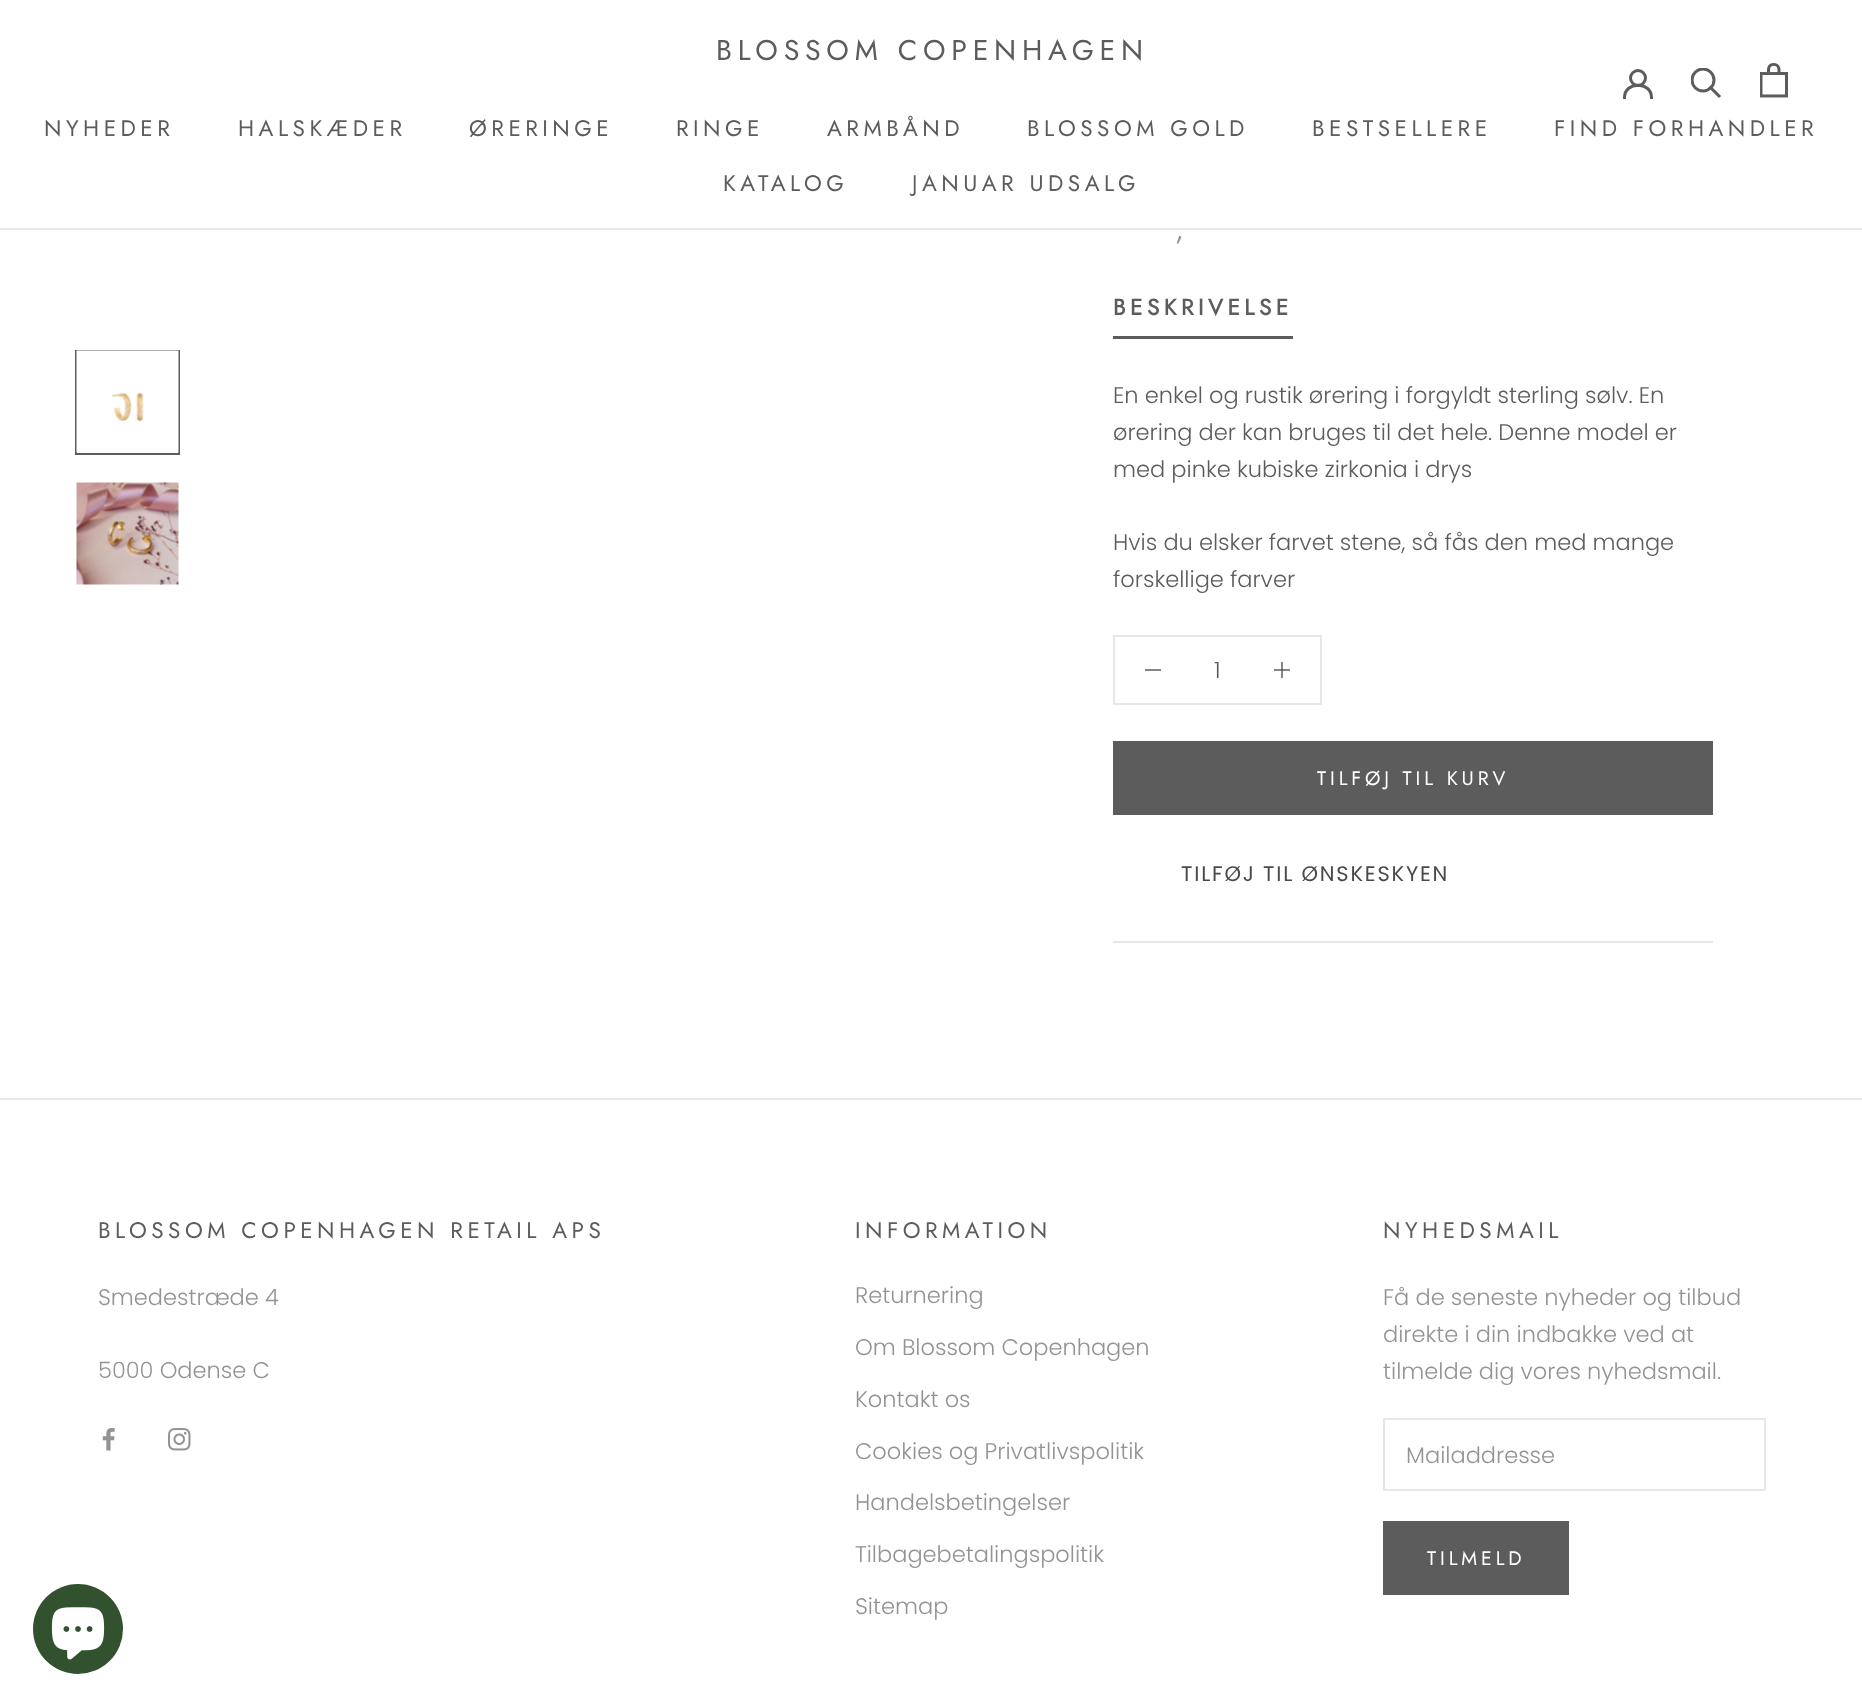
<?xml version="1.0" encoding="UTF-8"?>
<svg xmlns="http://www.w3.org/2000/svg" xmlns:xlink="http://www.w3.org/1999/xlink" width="1862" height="1705">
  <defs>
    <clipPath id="clip1"><rect x="1691" y="68" width="31" height="31" /></clipPath>
  </defs>
  <rect width="100%" height="100%" fill="#ffffff" />
  <rect x="1274" y="669" width="16" height="2" fill="#858585" />
  <rect y="228" width="1862" height="2" fill="#e7e7e7" />
  <path d="M 1624.5 97.5 c 0 -16.5 27 -16.5 27 0" fill="none" stroke="#5c5c5c" stroke-width="3" stroke-linecap="square" />
  <circle cx="1638" cy="78" r="7.5" fill="none" stroke="#5c5c5c" stroke-width="3" />
  <path d="M 1719 96 l -8.5 -8.5" fill="none" stroke="#5c5c5c" stroke-width="3" stroke-linecap="square" />
  <g clip-path="url(#clip1)">
    <circle cx="1703" cy="80" r="11" fill="none" stroke="#5c5c5c" stroke-width="3" />
  </g>
  <image x="1760" y="63" width="28" height="35" xlink:href="image1.png" />
  <rect x="76" y="351" width="103" height="103" fill="none" stroke="#5c5c5c" stroke-width="2" />
  <image x="76" y="350" width="103" height="103" xlink:href="image2.png" />
  <image x="76" y="482" width="103" height="103" xlink:href="image3.png" />
  <rect x="1113" y="941" width="600" height="2" fill="#e7e7e7" />
  <rect x="1113" y="336" width="180" height="3" fill="#5c5c5c" />
  <rect x="1114" y="636" width="207" height="68" fill="none" stroke="#e7e7e7" stroke-width="2" />
  <rect x="1145" y="669" width="16" height="2" fill="#858585" />
  <rect x="1281" y="662" width="2" height="16" fill="#858585" />
  <rect x="1281" y="669" width="2" height="2" fill="#666666" />
  <rect x="1114" y="742" width="598" height="72" fill="none" stroke="#5c5c5c" stroke-width="2" />
  <rect x="1115" y="743" width="596" height="70" fill="#5c5c5c" />
  <rect y="1098" width="1862" height="2" fill="#e7e7e7" />
  <image x="102" y="1428" width="13" height="23" xlink:href="image4.png" />
  <image x="168" y="1428" width="23" height="23" xlink:href="image5.png" />
  <rect x="1384" y="1419" width="381" height="71" fill="none" stroke="#e7e7e7" stroke-width="2" />
  <rect x="1384" y="1522" width="184" height="72" fill="none" stroke="#5c5c5c" stroke-width="2" />
  <rect x="1385" y="1523" width="182" height="70" fill="#5c5c5c" />
  <circle cx="78" cy="1629" r="45" fill="#32512e" />
  <image x="51" y="1607" width="54" height="53" xlink:href="image6.png" />
  <text x="716" y="60" style="font-family: Jost; font-size: 28.5px; letter-spacing: 5.75px; fill: #5c5c5c">BLOSSOM COPENHAGEN</text>
  <text x="44" y="136" style="font-family: Jost; font-size: 22.5px; letter-spacing: 4.5px; fill: #5c5c5c">NYHEDER</text>
  <text x="238" y="136" style="font-family: Jost; font-size: 22.5px; letter-spacing: 4.5px; fill: #5c5c5c">HALSKÆDER</text>
  <text x="469" y="136" style="font-family: Jost; font-size: 22.5px; letter-spacing: 4.5px; fill: #5c5c5c">ØRERINGE</text>
  <text x="676" y="136" style="font-family: Jost; font-size: 22.5px; letter-spacing: 4.5px; fill: #5c5c5c">RINGE</text>
  <text x="827" y="136" style="font-family: Jost; font-size: 22.5px; letter-spacing: 4.5px; fill: #5c5c5c">ARMBÅND</text>
  <text x="1027" y="136" style="font-family: Jost; font-size: 22.5px; letter-spacing: 4.5px; fill: #5c5c5c">BLOSSOM GOLD</text>
  <text x="1312" y="136" style="font-family: Jost; font-size: 22.5px; letter-spacing: 4.5px; fill: #5c5c5c">BESTSELLERE</text>
  <text x="1554" y="136" style="font-family: Jost; font-size: 22.5px; letter-spacing: 4.5px; fill: #5c5c5c">FIND FORHANDLER</text>
  <text x="723" y="191" style="font-family: Jost; font-size: 22.5px; letter-spacing: 4.5px; fill: #5c5c5c">KATALOG</text>
  <text x="912" y="191" style="font-family: Jost; font-size: 22.5px; letter-spacing: 4.5px; fill: #5c5c5c">JANUAR UDSALG</text>
  <text x="1175" y="239" style="font-family: Jost; font-size: 28.5px; letter-spacing: 4.5px; fill: #939393">,</text>
  <text x="1113" y="315" style="font-family: Jost; font-size: 22.5px; font-weight: bold; letter-spacing: 4.5px; fill: #5c5c5c">BESKRIVELSE</text>
  <text x="1113" y="403" style="font-family: Poppins; font-size: 22.5px; font-weight: 300; fill: #5c5c5c">En enkel og rustik ørering i forgyldt sterling sølv. En</text>
  <text x="1113" y="440" style="font-family: Poppins; font-size: 22.5px; font-weight: 300; fill: #5c5c5c">ørering der kan bruges til det hele. Denne model er</text>
  <text x="1113" y="477" style="font-family: Poppins; font-size: 22.5px; font-weight: 300; fill: #5c5c5c">med pinke kubiske zirkonia i drys</text>
  <text x="1113" y="550" style="font-family: Poppins; font-size: 22.5px; font-weight: 300; fill: #5c5c5c">Hvis du elsker farvet stene, så fås den med mange</text>
  <text x="1113" y="587" style="font-family: Poppins; font-size: 22.5px; font-weight: 300; fill: #5c5c5c">forskellige farver</text>
  <text x="1214" y="678" style="font-family: Poppins; font-size: 22.5px; font-weight: 300; fill: #5c5c5c">1</text>
  <text x="1317" y="785" style="font-family: Jost; font-size: 19.5px; letter-spacing: 3.9px; fill: #ffffff">TILFØJ TIL KURV</text>
  <text x="1181" y="881" style="font-family: Poppins; font-size: 21px; letter-spacing: 1.8px; fill: #4a4a4a">TILFØJ TIL ØNSKESKYEN</text>
  <text x="98" y="1238" style="font-family: Jost; font-size: 22.5px; letter-spacing: 4.5px; fill: #5c5c5c">BLOSSOM COPENHAGEN RETAIL APS</text>
  <text x="98" y="1305" style="font-family: Poppins; font-size: 22.5px; font-weight: 300; fill: #939393">Smedestræde 4</text>
  <text x="98" y="1378" style="font-family: Poppins; font-size: 22.5px; font-weight: 300; fill: #939393">5000 Odense C</text>
  <text x="855" y="1238" style="font-family: Jost; font-size: 22.5px; letter-spacing: 4.5px; fill: #5c5c5c">INFORMATION</text>
  <text x="855" y="1303" style="font-family: Poppins; font-size: 22.5px; font-weight: 300; fill: #939393">Returnering</text>
  <text x="855" y="1355" style="font-family: Poppins; font-size: 22.5px; font-weight: 300; fill: #939393">Om Blossom Copenhagen</text>
  <text x="855" y="1407" style="font-family: Poppins; font-size: 22.5px; font-weight: 300; fill: #939393">Kontakt os</text>
  <text x="855" y="1459" style="font-family: Poppins; font-size: 22.5px; font-weight: 300; fill: #939393">Cookies og Privatlivspolitik</text>
  <text x="855" y="1510" style="font-family: Poppins; font-size: 22.5px; font-weight: 300; fill: #939393">Handelsbetingelser</text>
  <text x="855" y="1562" style="font-family: Poppins; font-size: 22.5px; font-weight: 300; fill: #939393">Tilbagebetalingspolitik</text>
  <text x="855" y="1614" style="font-family: Poppins; font-size: 22.5px; font-weight: 300; fill: #939393">Sitemap</text>
  <text x="1383" y="1238" style="font-family: Jost; font-size: 22.5px; letter-spacing: 4.5px; fill: #5c5c5c">NYHEDSMAIL</text>
  <text x="1383" y="1305" style="font-family: Poppins; font-size: 22.5px; font-weight: 300; fill: #939393">Få de seneste nyheder og tilbud</text>
  <text x="1383" y="1342" style="font-family: Poppins; font-size: 22.5px; font-weight: 300; fill: #939393">direkte i din indbakke ved at</text>
  <text x="1383" y="1379" style="font-family: Poppins; font-size: 22.5px; font-weight: 300; fill: #939393">tilmelde dig vores nyhedsmail.</text>
  <text x="1406" y="1463" style="font-family: Poppins; font-size: 22.5px; font-weight: 300; fill: #939393">Mailaddresse</text>
  <text x="1427" y="1565" style="font-family: Jost; font-size: 19.5px; letter-spacing: 3.9px; fill: #ffffff">TILMELD</text>
</svg>
